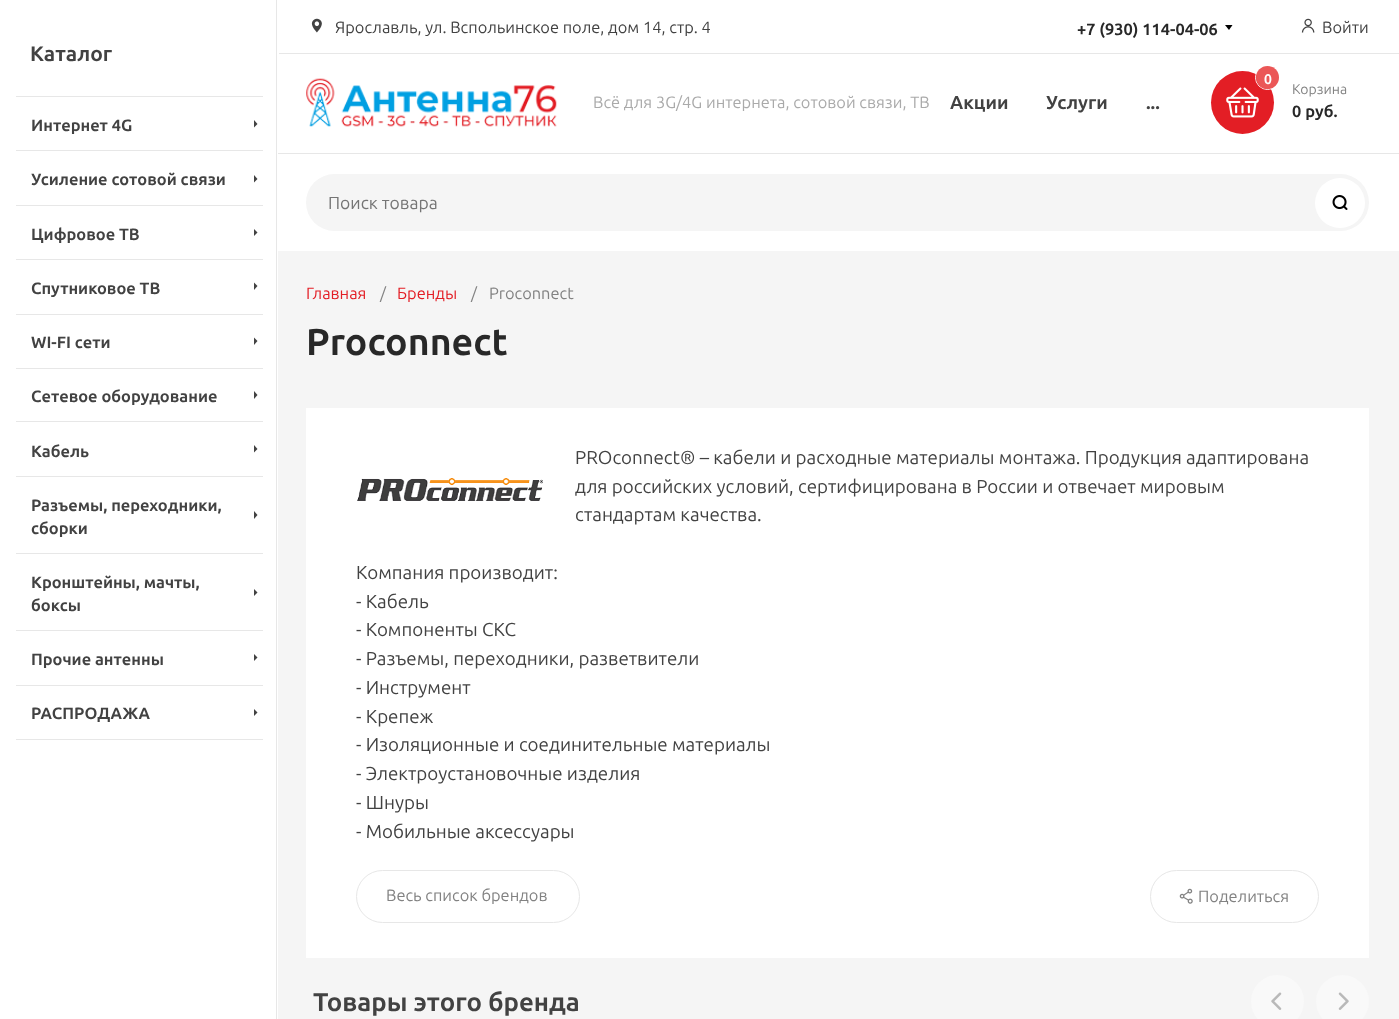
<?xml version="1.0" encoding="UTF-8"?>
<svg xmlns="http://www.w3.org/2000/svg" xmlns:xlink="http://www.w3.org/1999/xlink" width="1399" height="1019">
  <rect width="100%" height="100%" fill="#f5f5f5" />
  <rect x="278" width="1121" height="251" fill="#ffffff" />
  <rect x="275" y="153" width="1124" height="1" fill="#e7e7e7" />
  <rect width="278" height="1019" fill="#ffffff" />
  <rect x="276" width="1" height="1019" fill="#e7e7e7" />
  <rect x="16" y="96" width="247" height="1" fill="#e7e7e7" />
  <path d="M 254 127.5 v -7.5 l 3.5 4 z" fill="#424242" />
  <rect x="16" y="150" width="247" height="1" fill="#e7e7e7" />
  <path d="M 254 182.5 v -7.5 l 3.5 4 z" fill="#424242" />
  <rect x="16" y="205" width="247" height="1" fill="#e7e7e7" />
  <path d="M 254 236 v -7 l 3.5 3.5 z" fill="#424242" />
  <rect x="16" y="259" width="247" height="1" fill="#e7e7e7" />
  <path d="M 254 290 v -7.5 l 3.5 3.5 z" fill="#424242" />
  <rect x="16" y="314" width="247" height="1" fill="#e7e7e7" />
  <path d="M 254 345 v -7.5 l 3.5 3.5 z" fill="#424242" />
  <rect x="16" y="368" width="247" height="1" fill="#e7e7e7" />
  <path d="M 254 399 v -8 l 3.5 4 z" fill="#424242" />
  <rect x="16" y="421" width="247" height="1" fill="#e7e7e7" />
  <path d="M 254 452.5 v -7.5 l 3.5 4 z" fill="#424242" />
  <rect x="16" y="476" width="247" height="1" fill="#e7e7e7" />
  <path d="M 254 519 v -8 l 3.5 4 z" fill="#424242" />
  <rect x="16" y="553" width="247" height="1" fill="#e7e7e7" />
  <path d="M 254 596 v -7 l 3.5 3.5 z" fill="#424242" />
  <rect x="16" y="630" width="247" height="1" fill="#e7e7e7" />
  <path d="M 254 661 v -7 l 3.5 3.5 z" fill="#424242" />
  <rect x="16" y="685" width="247" height="1" fill="#e7e7e7" />
  <rect x="16" y="739" width="247" height="1" fill="#e7e7e7" />
  <path d="M 254 716 v -7 l 3.5 3.5 z" fill="#424242" />
  <rect x="279" y="53" width="1120" height="1" fill="#e7e7e7" />
  <image x="311" y="18" width="11" height="15" xlink:href="image1.png" />
  <path d="M 1225 25 h 7.5 l -3.5 5 z" fill="#000000" />
  <image x="1301" y="18" width="14" height="15" xlink:href="image2.png" />
  <image x="306" y="78" width="251" height="49" xlink:href="image3.png" />
  <circle cx="1242.5" cy="102.5" r="31.5" fill="#e31e25" />
  <image x="1226" y="87" width="33" height="31" xlink:href="image4.png" />
  <circle cx="1267.5" cy="77.5" r="12" fill="none" stroke="#ffffff" />
  <circle cx="1267.5" cy="77.5" r="11.5" fill="#eb5757" />
  <rect x="306" y="174" width="1063" height="57" rx="28.5" fill="#f5f5f5" />
  <circle cx="1340" cy="203" r="25" fill="#ffffff" />
  <image x="1332" y="195" width="16" height="15" xlink:href="image5.png" />
  <rect x="306" y="408" width="1063" height="550" fill="#ffffff" />
  <image x="357" y="478" width="186" height="23" xlink:href="image6.png" />
  <rect x="356.5" y="870.5" width="223" height="52" rx="26" fill="none" stroke="#e7e7e7" />
  <rect x="1150.5" y="870.5" width="168" height="52" rx="26" fill="none" stroke="#e7e7e7" />
  <image x="1179" y="888" width="14" height="16" xlink:href="image7.png" />
  <circle cx="1277.5" cy="1001.5" r="26.5" fill="#f9f9f9" />
  <image x="1271" y="992" width="11" height="18" xlink:href="image8.png" />
  <circle cx="1342.5" cy="1001.5" r="26.5" fill="#f9f9f9" />
  <image x="1338" y="992" width="11" height="18" xlink:href="image9.png" />
  <text x="30" y="61" style="font-family: Ubuntu; font-size: 21px; font-weight: bold; fill: #424242">Каталог</text>
  <text x="31" y="131" style="font-family: Ubuntu; font-size: 16.4px; font-weight: bold; fill: #424242">Интернет 4G</text>
  <text x="31" y="185" style="font-family: Ubuntu; font-size: 16.4px; font-weight: bold; fill: #424242">Усиление сотовой связи</text>
  <text x="31" y="240" style="font-family: Ubuntu; font-size: 16.4px; font-weight: bold; fill: #424242">Цифровое ТВ</text>
  <text x="31" y="294" style="font-family: Ubuntu; font-size: 16.4px; font-weight: bold; fill: #424242">Спутниковое ТВ</text>
  <text x="31" y="348" style="font-family: Ubuntu; font-size: 16.4px; font-weight: bold; fill: #424242">WI-FI сети</text>
  <text x="31" y="402" style="font-family: Ubuntu; font-size: 16.4px; font-weight: bold; fill: #424242">Сетевое оборудование</text>
  <text x="31" y="457" style="font-family: Ubuntu; font-size: 16.4px; font-weight: bold; fill: #424242">Кабель</text>
  <text x="31" y="511" style="font-family: Ubuntu; font-size: 16.4px; font-weight: bold; fill: #424242">Разъемы, переходники,</text>
  <text x="31" y="534" style="font-family: Ubuntu; font-size: 16.4px; font-weight: bold; fill: #424242">сборки</text>
  <text x="31" y="588" style="font-family: Ubuntu; font-size: 16.4px; font-weight: bold; fill: #424242">Кронштейны, мачты,</text>
  <text x="31" y="611" style="font-family: Ubuntu; font-size: 16.4px; font-weight: bold; fill: #424242">боксы</text>
  <text x="31" y="665" style="font-family: Ubuntu; font-size: 16.4px; font-weight: bold; fill: #424242">Прочие антенны</text>
  <text x="31" y="719" style="font-family: Ubuntu; font-size: 16.4px; font-weight: bold; fill: #424242">РАСПРОДАЖА</text>
  <text x="335" y="33" style="font-family: Ubuntu; font-size: 16.4px; fill: #424242">Ярославль, ул. Вспольинское поле, дом 14, стр. 4</text>
  <text x="1077" y="35" style="font-family: Ubuntu; font-size: 16.4px; font-weight: bold; fill: #282828">+7 (930) 114-04-06</text>
  <text x="1322" y="33" style="font-family: Ubuntu; font-size: 16.4px; fill: #424242">Войти</text>
  <text x="593" y="108" style="font-family: Ubuntu; font-size: 16.4px; fill: #aaaaaa">Всё для 3G/4G интернета, сотовой связи, ТВ</text>
  <text x="950" y="109" style="font-family: Ubuntu; font-size: 18.75px; font-weight: bold; fill: #424242">Акции</text>
  <text x="1046" y="109" style="font-family: Ubuntu; font-size: 18.75px; font-weight: bold; fill: #424242">Услуги</text>
  <text x="1146" y="109" style="font-family: Ubuntu; font-size: 18.75px; font-weight: bold; fill: #424242">...</text>
  <text x="1264" y="84" style="font-family: Ubuntu; font-size: 14px; font-weight: bold; fill: #ffffff">0</text>
  <text x="1292" y="94" style="font-family: Ubuntu; font-size: 14px; fill: #828282">Корзина</text>
  <text x="1292" y="117" style="font-family: Ubuntu; font-size: 16.4px; font-weight: bold; fill: #282828">0 руб.</text>
  <text x="328" y="209" style="font-family: Ubuntu; font-size: 17.5px; fill: #757575">Поиск товара</text>
  <text x="306" y="299" style="font-family: Ubuntu; font-size: 16.4px; fill: #e31e25">Главная</text>
  <text x="380" y="299" style="font-family: Ubuntu; font-size: 16.4px; fill: #828282">/</text>
  <text x="397" y="299" style="font-family: Ubuntu; font-size: 16.4px; fill: #e31e25">Бренды</text>
  <text x="471" y="299" style="font-family: Ubuntu; font-size: 16.4px; fill: #828282">/</text>
  <text x="489" y="299" style="font-family: Ubuntu; font-size: 16.4px; fill: #828282">Proconnect</text>
  <text x="306" y="355" style="font-family: Ubuntu; font-size: 37.5px; font-weight: bold; fill: #282828">Proconnect</text>
  <text x="575" y="464" style="font-family: Ubuntu; font-size: 18.75px; fill: #424242">PROconnect® – кабели и расходные материалы монтажа. Продукция адаптирована</text>
  <text x="575" y="493" style="font-family: Ubuntu; font-size: 18.75px; fill: #424242">для российских условий, сертифицирована в России и отвечает мировым</text>
  <text x="575" y="521" style="font-family: Ubuntu; font-size: 18.75px; fill: #424242">стандартам качества.</text>
  <text x="356" y="579" style="font-family: Ubuntu; font-size: 18.75px; fill: #424242">Компания производит:</text>
  <text x="356" y="608" style="font-family: Ubuntu; font-size: 18.75px; fill: #424242">- Кабель</text>
  <text x="356" y="636" style="font-family: Ubuntu; font-size: 18.75px; fill: #424242">- Компоненты СКС</text>
  <text x="356" y="665" style="font-family: Ubuntu; font-size: 18.75px; fill: #424242">- Разъемы, переходники, разветвители</text>
  <text x="356" y="694" style="font-family: Ubuntu; font-size: 18.75px; fill: #424242">- Инструмент</text>
  <text x="356" y="723" style="font-family: Ubuntu; font-size: 18.75px; fill: #424242">- Крепеж</text>
  <text x="356" y="751" style="font-family: Ubuntu; font-size: 18.75px; fill: #424242">- Изоляционные и соединительные материалы</text>
  <text x="356" y="780" style="font-family: Ubuntu; font-size: 18.75px; fill: #424242">- Электроустановочные изделия</text>
  <text x="356" y="809" style="font-family: Ubuntu; font-size: 18.75px; fill: #424242">- Шнуры</text>
  <text x="356" y="838" style="font-family: Ubuntu; font-size: 18.75px; fill: #424242">- Мобильные аксессуары</text>
  <text x="386" y="901" style="font-family: Ubuntu; font-size: 16.4px; fill: #828282">Весь список брендов</text>
  <text x="1198" y="902" style="font-family: Ubuntu; font-size: 16.4px; fill: #828282">Поделиться</text>
  <text x="313" y="1011" style="font-family: Ubuntu; font-size: 25.75px; font-weight: bold; fill: #424242">Товары этого бренда</text>
</svg>
